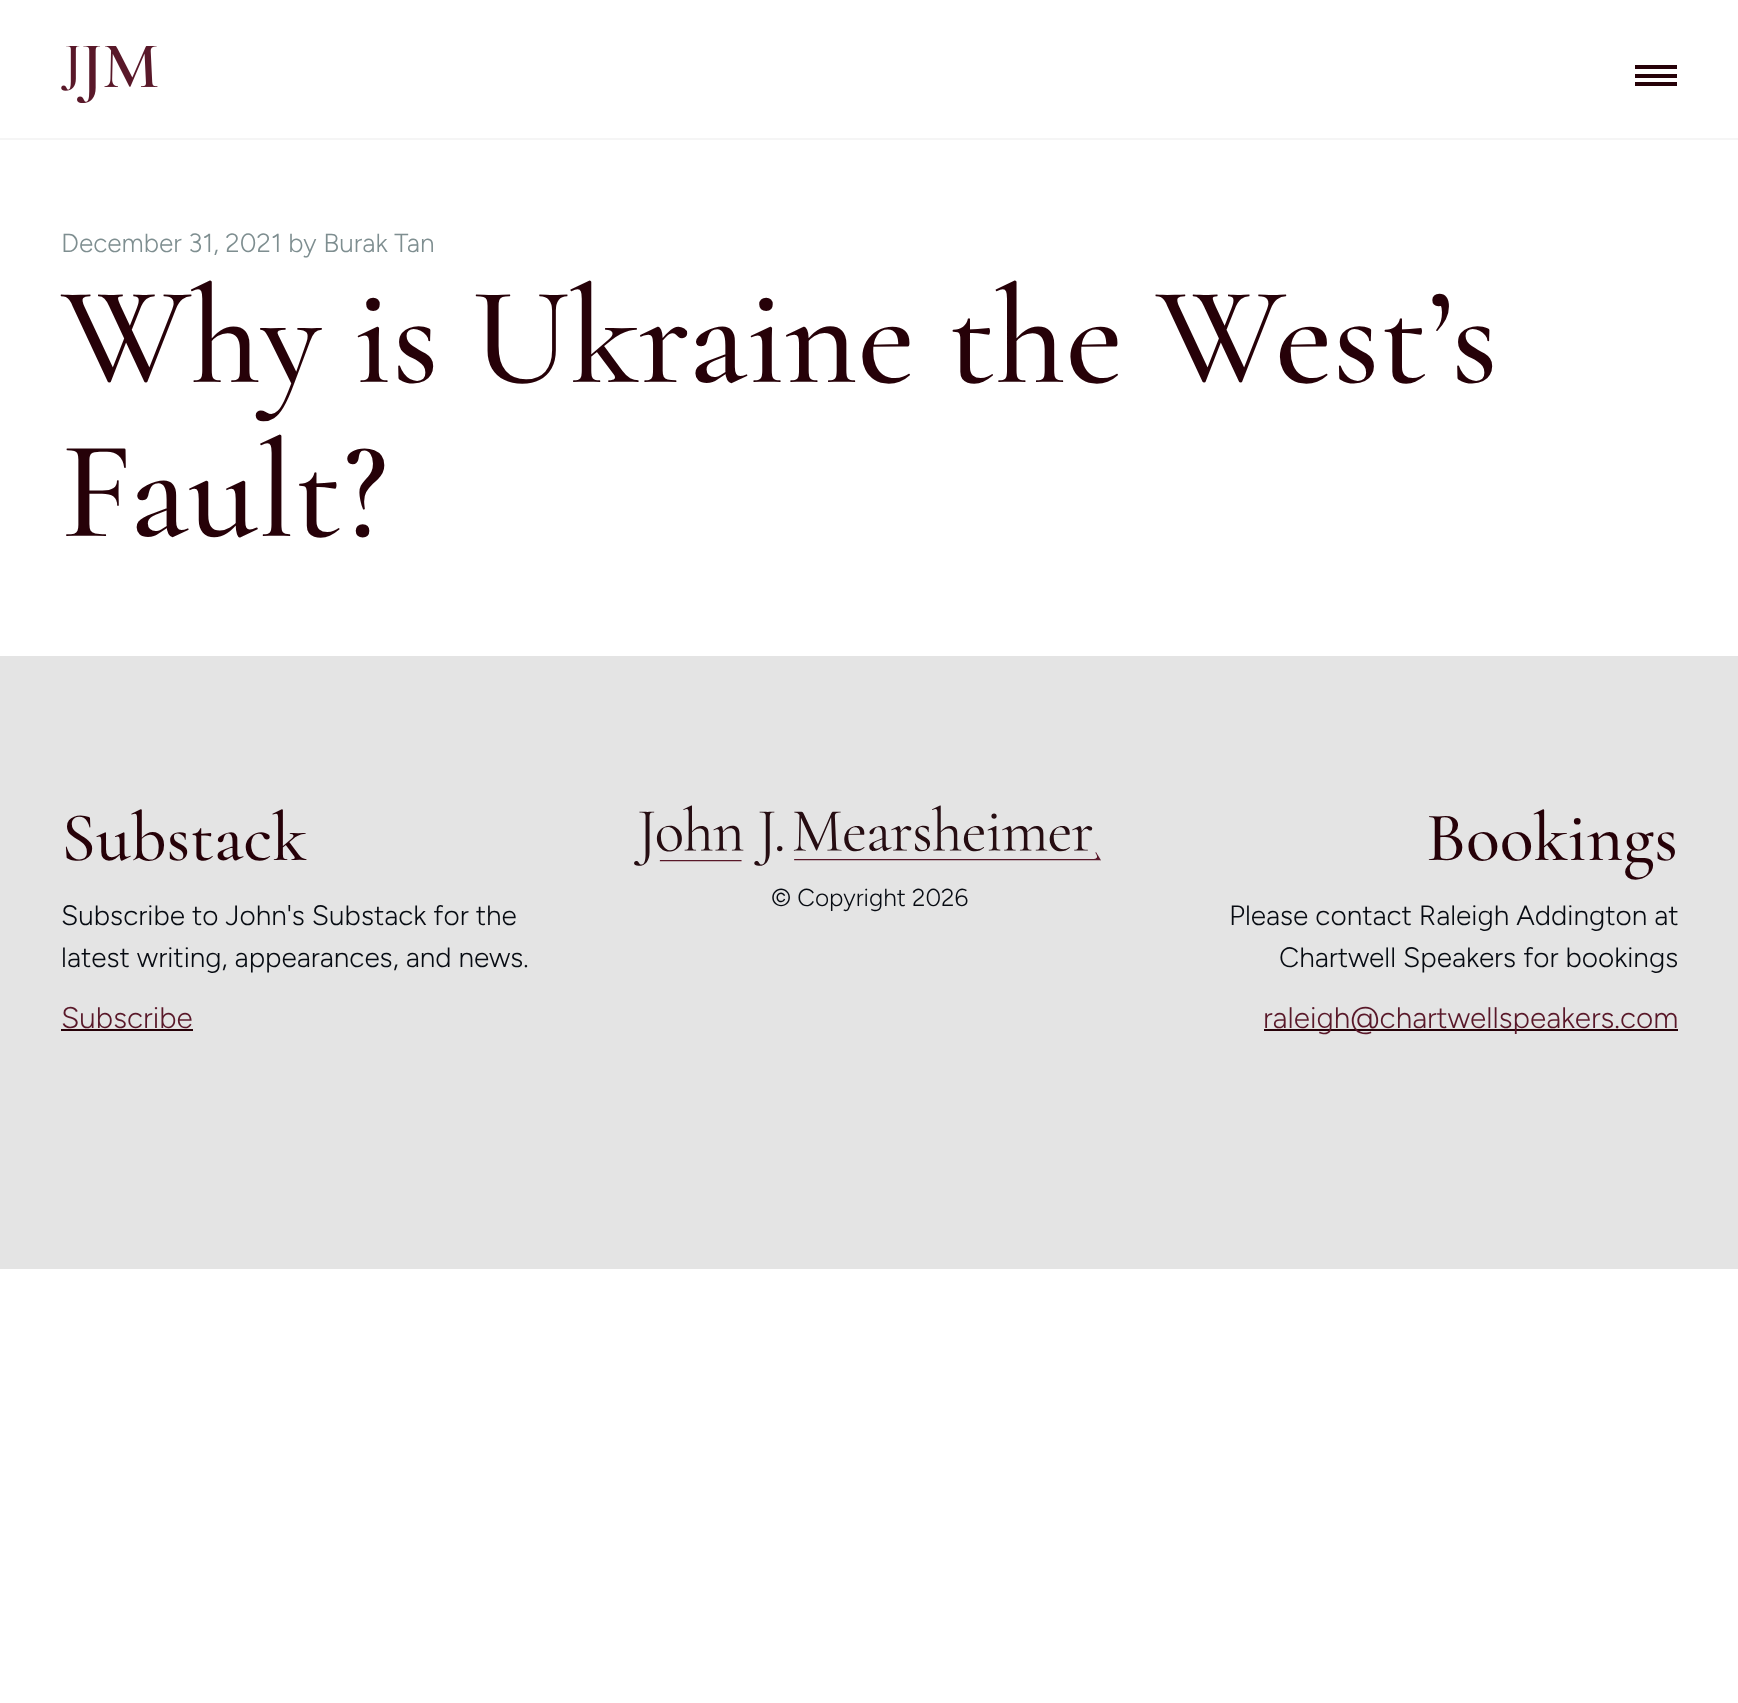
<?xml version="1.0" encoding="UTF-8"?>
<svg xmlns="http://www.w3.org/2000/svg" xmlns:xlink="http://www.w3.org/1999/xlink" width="1738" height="1703">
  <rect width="100%" height="100%" fill="#ffffff" />
  <rect y="138" width="1738" height="2" fill="#f5f5f5" />
  <image x="61" y="46" width="97" height="57" xlink:href="image1.png" />
  <rect x="1635" y="65" width="42" height="4" fill="#260108" />
  <rect x="1635" y="74" width="42" height="4" fill="#260108" />
  <rect x="1635" y="82" width="42" height="4" fill="#260108" />
  <rect y="656" width="1738" height="613" fill="#e4e4e4" />
  <rect x="61" y="1029" width="132" height="2" fill="#260108" />
  <image x="634" y="805" width="467" height="61" xlink:href="image2.png" />
  <rect x="1264" y="1029" width="414" height="2" fill="#260108" />
  <text x="61" y="252" style="font-family: Figtree; font-size: 26.25px; font-weight: 300; fill: #7e8e90">December 31, 2021 by Burak Tan</text>
  <text x="61" y="382" style="font-family: Cormorant Garamond; font-size: 140px; font-weight: 500; fill: #260108">Why is Ukraine the West’s</text>
  <text x="61" y="536" style="font-family: Cormorant Garamond; font-size: 140px; font-weight: 500; fill: #260108">Fault?</text>
  <text x="61" y="860" style="font-family: Cormorant Garamond; font-size: 70px; font-weight: 500; fill: #260108">Substack</text>
  <text x="61" y="925" style="font-family: Figtree; font-size: 28px; font-weight: 300; fill: #070b12">Subscribe to John's Substack for the</text>
  <text x="61" y="967" style="font-family: Figtree; font-size: 28px; font-weight: 300; fill: #070b12">latest writing, appearances, and news.</text>
  <text x="61" y="1028" style="font-family: Figtree; font-size: 29.75px; font-weight: 300; fill: #591829">Subscribe</text>
  <text x="771" y="906" style="font-family: Figtree; font-size: 24.5px; font-weight: 300; fill: #070b12">© Copyright 2026</text>
  <text x="1426" y="860" style="font-family: Cormorant Garamond; font-size: 70px; font-weight: 500; fill: #260108">Bookings</text>
  <text x="1229" y="925" style="font-family: Figtree; font-size: 28px; font-weight: 300; fill: #070b12">Please contact Raleigh Addington at</text>
  <text x="1279" y="967" style="font-family: Figtree; font-size: 28px; font-weight: 300; fill: #070b12">Chartwell Speakers for bookings</text>
  <text x="1263" y="1028" style="font-family: Figtree; font-size: 29.75px; font-weight: 300; fill: #591829">raleigh@chartwellspeakers.com</text>
</svg>
